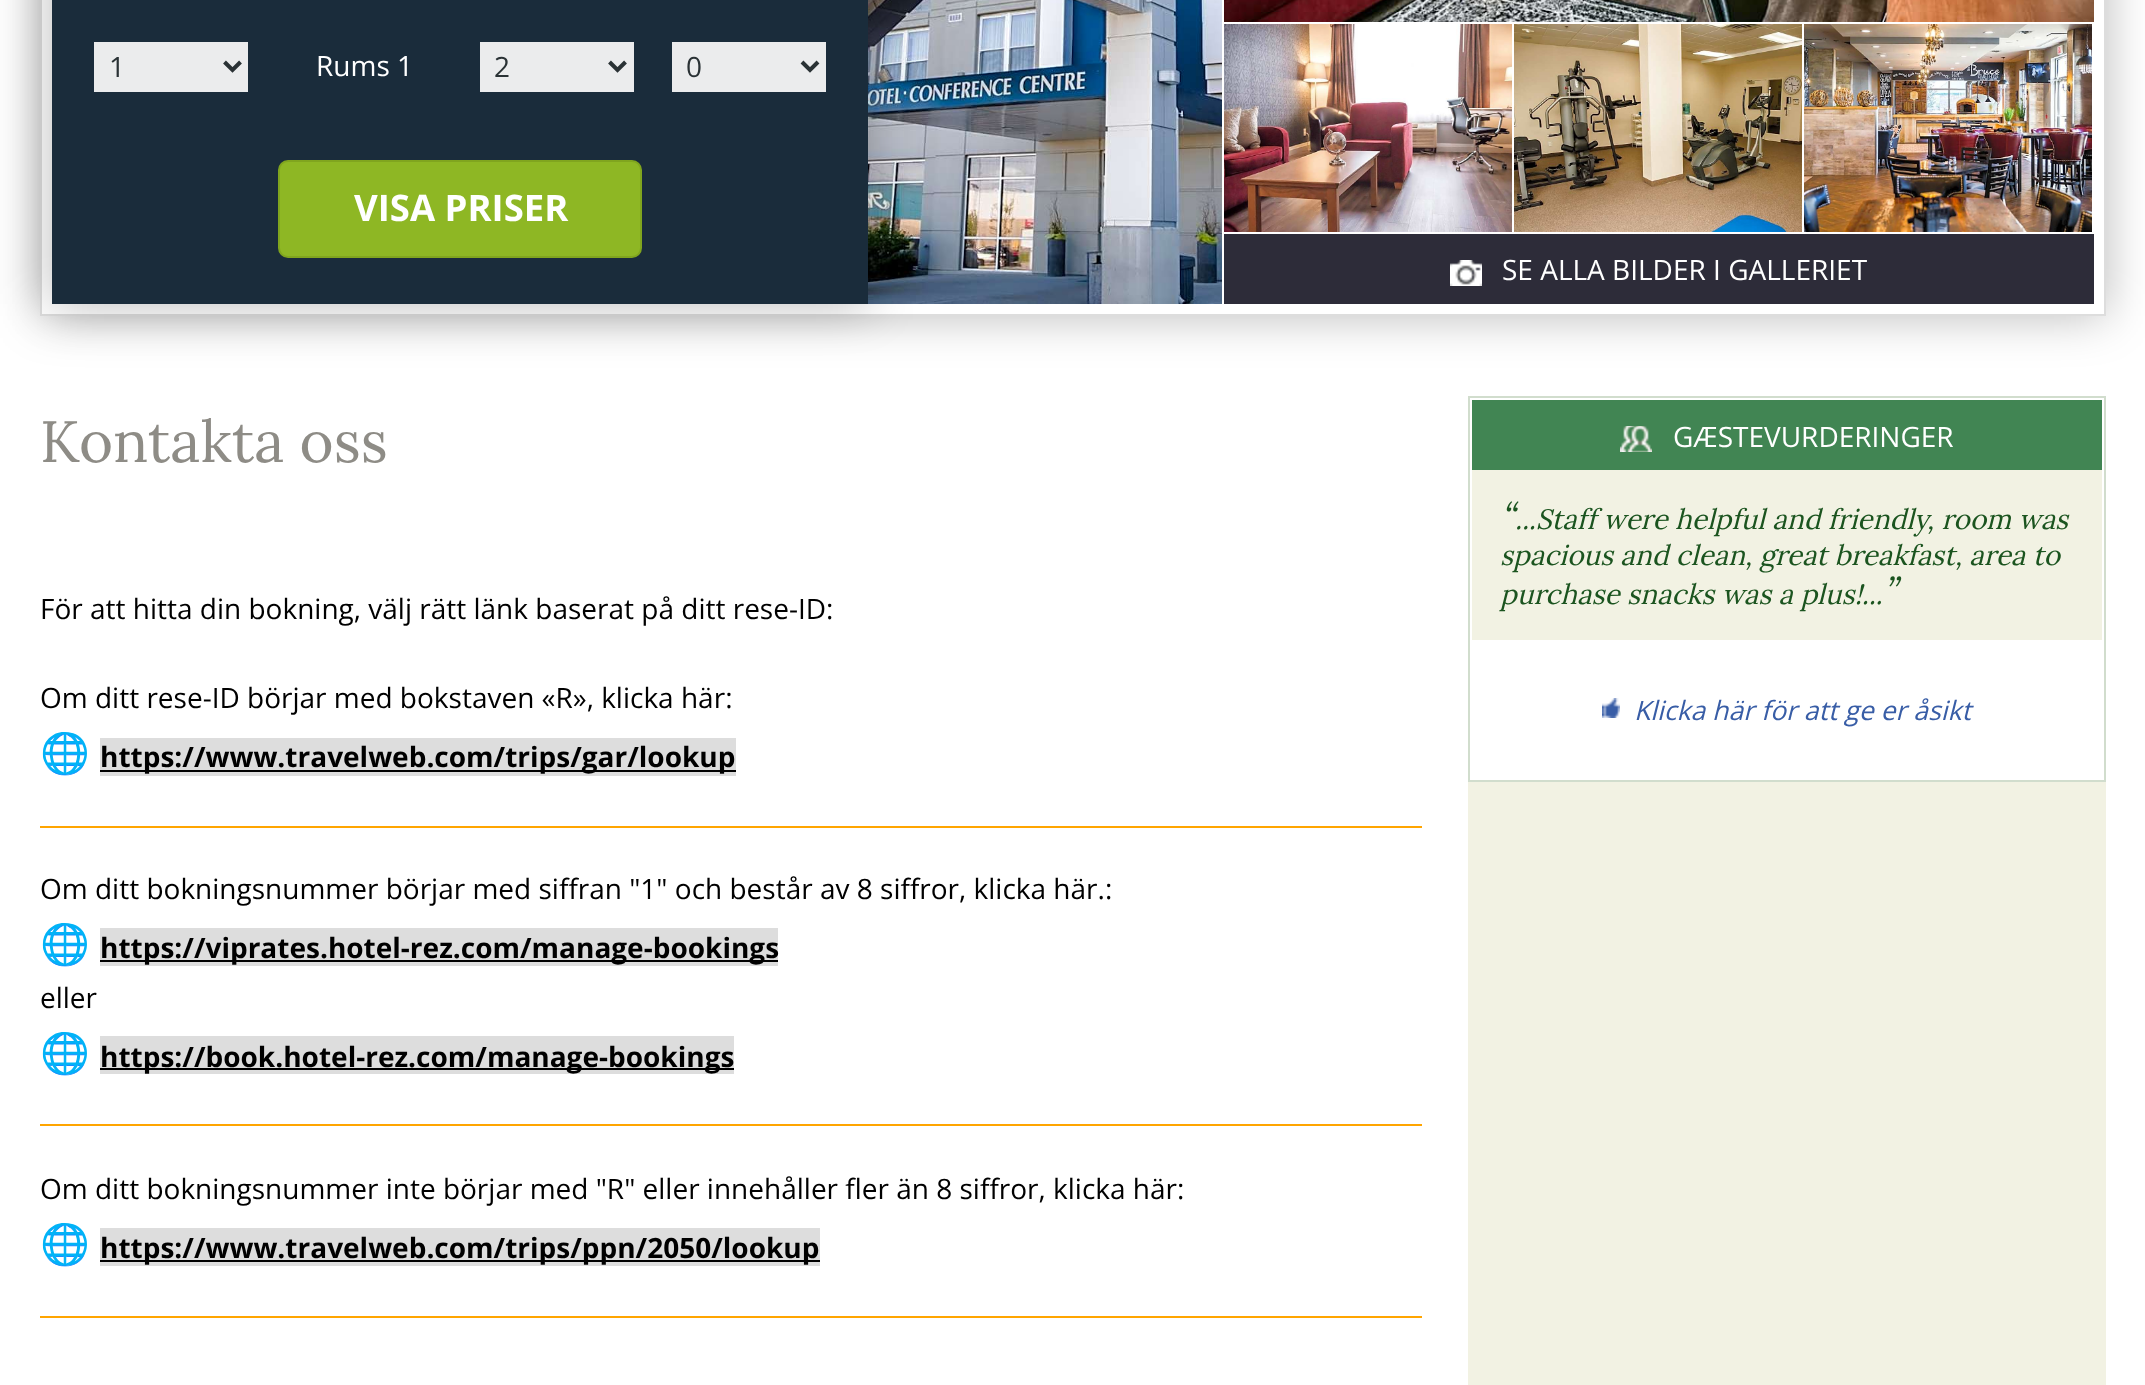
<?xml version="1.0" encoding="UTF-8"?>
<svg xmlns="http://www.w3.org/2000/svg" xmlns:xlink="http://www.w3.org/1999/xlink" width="2145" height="1385">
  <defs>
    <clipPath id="clip1"><path d="M 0 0 h 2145 v 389 h -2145 z m 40 -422 h 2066 v 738 h -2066 z" clip-rule="evenodd" /></clipPath>
  </defs>
  <rect width="100%" height="100%" fill="#ffffff" />
  <g clip-path="url(#clip1)">
    <rect x="40" y="-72" width="2066" height="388" fill="#000000" fill-opacity="0.27" filter="blur(24px)" />
  </g>
  <rect x="41" y="-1" width="2064" height="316" fill="none" stroke="#dddddd" stroke-width="2" />
  <image x="868" y="0" width="354" height="304" xlink:href="image1.png" />
  <rect x="52" y="-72" width="816" height="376" fill="#000000" fill-opacity="0.27" filter="blur(24px)" />
  <rect x="52" width="816" height="304" fill="#1a2c3b" />
  <rect x="94" y="42" width="154" height="50" fill="#ebeced" />
  <path d="M 224.5 62 l 8 8 l 8 -8" fill="none" stroke="#2a3235" stroke-width="4" />
  <rect x="480" y="42" width="154" height="50" fill="#ebeced" />
  <path d="M 609.5 62 l 8 8 l 8 -8" fill="none" stroke="#2a3235" stroke-width="4" />
  <rect x="672" y="42" width="154" height="50" fill="#ebeced" />
  <path d="M 802 62 l 8 8 l 8 -8" fill="none" stroke="#2a3235" stroke-width="4" />
  <rect x="279" y="161" width="362" height="96" rx="9" fill="#8eb724" stroke="#80a51e" stroke-width="2" />
  <rect x="1224" y="234" width="870" height="70" fill="#2d2c39" />
  <image x="1224" y="0" width="870" height="22" xlink:href="image2.png" />
  <image x="1224" y="24" width="288" height="208" xlink:href="image3.png" />
  <image x="1514" y="24" width="288" height="208" xlink:href="image4.png" />
  <image x="1804" y="24" width="288" height="208" xlink:href="image5.png" />
  <image x="1450" y="260" width="32" height="26" xlink:href="image6.png" />
  <rect x="100" y="738" width="636" height="38" fill="#dddddd" />
  <rect x="100" y="770" width="636" height="2" fill="#000000" />
  <rect x="40" y="826" width="1382" height="2" fill="#ffa500" />
  <rect x="100" y="928" width="678" height="38" fill="#dddddd" />
  <rect x="100" y="960" width="678" height="2" fill="#000000" />
  <rect x="100" y="1036" width="634" height="38" fill="#dddddd" />
  <rect x="100" y="1068" width="634" height="2" fill="#000000" />
  <rect x="40" y="1124" width="1382" height="2" fill="#ffa500" />
  <rect x="100" y="1228" width="720" height="38" fill="#dddddd" />
  <rect x="100" y="1260" width="720" height="2" fill="#000000" />
  <rect x="40" y="1316" width="1382" height="2" fill="#ffa500" />
  <rect x="1468" y="782" width="638" height="603" fill="#f2f2e3" />
  <rect x="1469" y="397" width="636" height="384" fill="none" stroke="#d1ddcd" stroke-width="2" />
  <rect x="1472" y="400" width="630" height="70" fill="#418553" />
  <image x="1620" y="426" width="32" height="26" xlink:href="image7.png" />
  <rect x="1472" y="470" width="630" height="170" fill="#f2f2e3" />
  <image x="1602" y="698" width="18" height="20" xlink:href="image8.png" />
  <text x="109" y="77" style="font-family: Open Sans; font-size: 28px; fill: #2a3235">1</text>
  <text x="316" y="76" style="font-family: Open Sans; font-size: 28px; fill: #ffffff">Rums 1</text>
  <text x="494" y="77" style="font-family: Open Sans; font-size: 28px; fill: #2a3235">2</text>
  <text x="686" y="77" style="font-family: Open Sans; font-size: 28px; fill: #2a3235">0</text>
  <text x="354" y="221" style="font-family: Open Sans; font-size: 36.5px; font-weight: bold; fill: #ffffff">VISA PRISER</text>
  <text x="1502" y="280" style="font-family: Open Sans; font-size: 28px; fill: #ffffff">SE ALLA BILDER I GALLERIET</text>
  <text x="40" y="462" style="font-family: Lora; font-size: 58.25px; fill: #8e8c86">Kontakta oss</text>
  <text x="40" y="619" style="font-family: Open Sans; font-size: 28px; fill: #000000">För att hitta din bokning, välj rätt länk baserat på ditt rese-ID:</text>
  <text x="40" y="708" style="font-family: Open Sans; font-size: 28px; fill: #000000">Om ditt rese-ID börjar med bokstaven «R», klicka här:</text>
  <text x="40" y="767" style="font-family: Noto Color Emoji; font-size: 40px; fill: #000000">🌐</text>
  <text x="100" y="767" style="font-family: Open Sans; font-size: 28px; font-weight: bold; fill: #000000">https://www.travelweb.com/trips/gar/lookup</text>
  <text x="40" y="899" style="font-family: Open Sans; font-size: 28px; fill: #000000">Om ditt bokningsnummer börjar med siffran "1" och består av 8 siffror, klicka här.:</text>
  <text x="40" y="958" style="font-family: Noto Color Emoji; font-size: 40px; fill: #000000">🌐</text>
  <text x="100" y="958" style="font-family: Open Sans; font-size: 28px; font-weight: bold; fill: #000000">https://viprates.hotel-rez.com/manage-bookings</text>
  <text x="40" y="1008" style="font-family: Open Sans; font-size: 28px; fill: #000000">eller</text>
  <text x="40" y="1067" style="font-family: Noto Color Emoji; font-size: 40px; fill: #000000">🌐</text>
  <text x="100" y="1067" style="font-family: Open Sans; font-size: 28px; font-weight: bold; fill: #000000">https://book.hotel-rez.com/manage-bookings</text>
  <text x="40" y="1199" style="font-family: Open Sans; font-size: 28px; fill: #000000">Om ditt bokningsnummer inte börjar med "R" eller innehåller fler än 8 siffror, klicka här:</text>
  <text x="40" y="1258" style="font-family: Noto Color Emoji; font-size: 40px; fill: #000000">🌐</text>
  <text x="100" y="1258" style="font-family: Open Sans; font-size: 28px; font-weight: bold; fill: #000000">https://www.travelweb.com/trips/ppn/2050/lookup</text>
  <text x="1673" y="447" style="font-family: Open Sans; font-size: 28px; fill: #ffffff">GÆSTEVURDERINGER</text>
  <text x="1500" y="529" style="font-family: Lora; font-size: 36.5px; font-style: italic; fill: #1b541f">“</text>
  <text x="1515" y="529" style="font-family: Lora; font-size: 28px; font-style: italic; fill: #1b541f">...Staff were helpful and friendly, room was</text>
  <text x="1500" y="565" style="font-family: Lora; font-size: 28px; font-style: italic; fill: #1b541f">spacious and clean, great breakfast, area to</text>
  <text x="1500" y="604" style="font-family: Lora; font-size: 28px; font-style: italic; fill: #1b541f">purchase snacks was a plus!...</text>
  <text x="1883" y="604" style="font-family: Lora; font-size: 36.5px; font-style: italic; fill: #1b541f">”</text>
  <text x="1634" y="720" style="font-family: Open Sans; font-size: 26.6px; font-style: italic; fill: #385da6">Klicka här för att ge er åsikt</text>
</svg>
